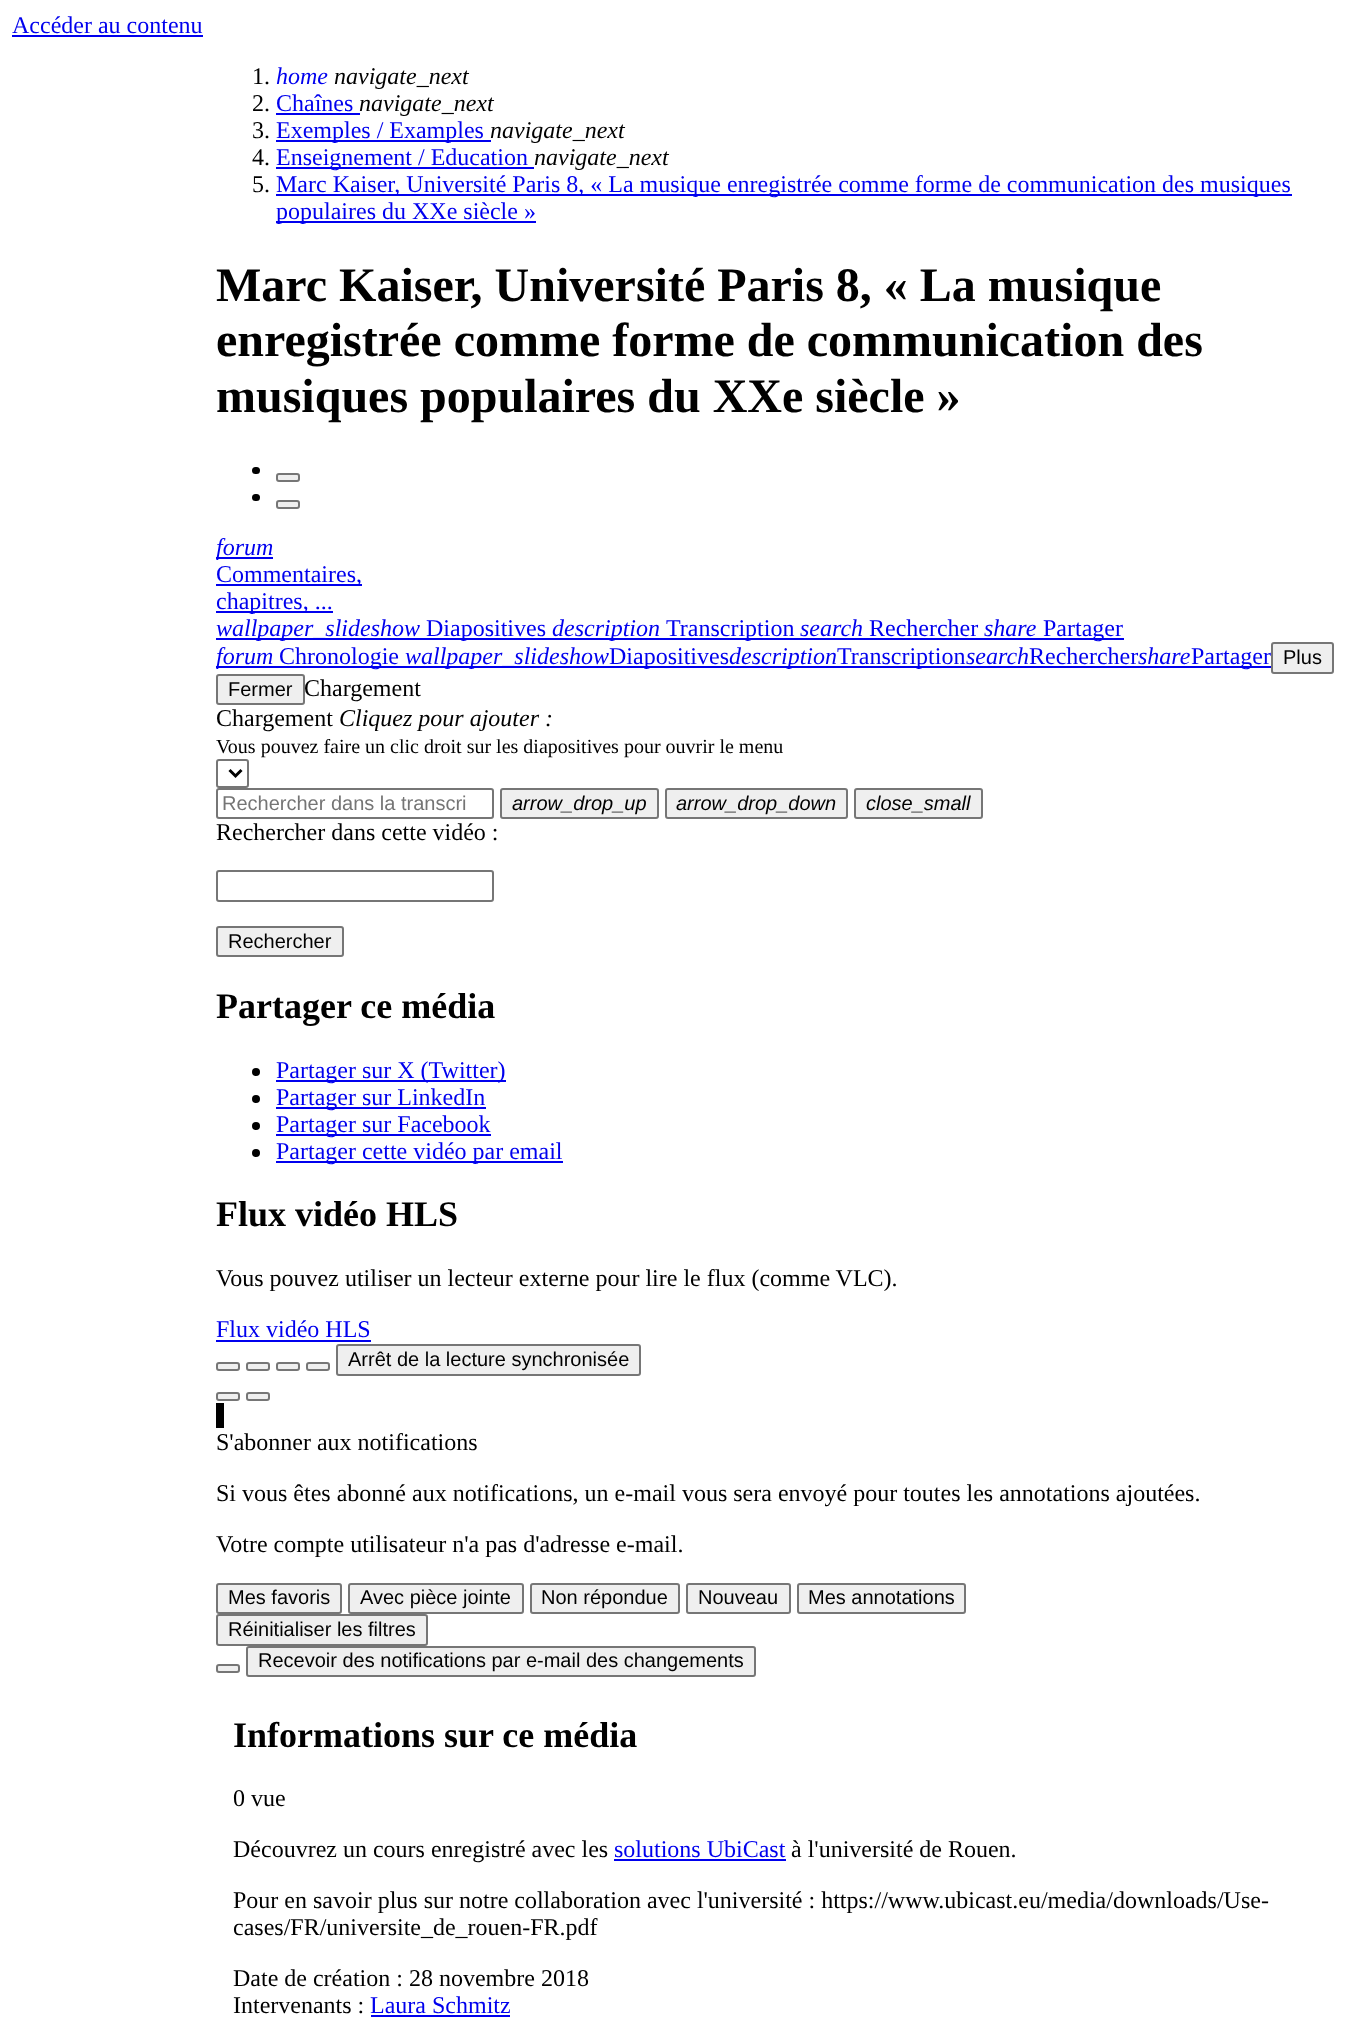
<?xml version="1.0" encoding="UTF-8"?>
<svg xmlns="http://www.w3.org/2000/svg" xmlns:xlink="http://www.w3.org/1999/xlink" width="1351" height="2032">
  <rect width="100%" height="100%" fill="#ffffff" />
  <rect x="12" y="35" width="191" height="2" fill="#0000ee" />
  <rect x="276" y="113" width="84" height="2" fill="#0000ee" />
  <rect x="276" y="140" width="215" height="2" fill="#0000ee" />
  <rect x="276" y="167" width="258" height="2" fill="#0000ee" />
  <rect x="276" y="194" width="1016" height="2" fill="#0000ee" />
  <rect x="276" y="221" width="260" height="2" fill="#0000ee" />
  <rect x="252" y="467" width="8" height="7" rx="3.5" fill="#000000" />
  <rect x="277" y="474" width="22" height="7" rx="2" fill="#efefef" stroke="#767676" stroke-width="2" />
  <rect x="252" y="494" width="8" height="7" rx="3.5" fill="#000000" />
  <rect x="277" y="501" width="22" height="7" rx="2" fill="#efefef" stroke="#767676" stroke-width="2" />
  <rect x="216" y="557" width="57" height="2" fill="#0000ee" />
  <rect x="216" y="584" width="146" height="2" fill="#0000ee" />
  <rect x="216" y="611" width="117" height="2" fill="#0000ee" />
  <rect x="216" y="638" width="908" height="2" fill="#0000ee" />
  <rect x="216" y="666" width="393" height="2" fill="#0000ee" />
  <rect x="609" y="666" width="662" height="2" fill="#0000ee" />
  <rect x="1272" y="643" width="61" height="30" rx="2" fill="#efefef" stroke="#767676" stroke-width="2" />
  <rect x="217" y="675" width="87" height="29" rx="2" fill="#efefef" stroke="#767676" stroke-width="2" />
  <rect x="217" y="760" width="31" height="27" rx="2" fill="none" stroke="#767676" stroke-width="2" />
  <path d="M 229.5 770 l 6 6 l 6 -6" fill="none" stroke="#000000" stroke-width="3" />
  <rect x="217" y="789" width="276" height="29" rx="2" fill="none" stroke="#767676" stroke-width="2" />
  <rect x="501" y="789" width="157" height="29" rx="2" fill="#efefef" stroke="#767676" stroke-width="2" />
  <rect x="666" y="789" width="181" height="29" rx="2" fill="#efefef" stroke="#767676" stroke-width="2" />
  <rect x="855" y="789" width="127" height="29" rx="2" fill="#efefef" stroke="#767676" stroke-width="2" />
  <rect x="217" y="871" width="276" height="30" rx="2" fill="none" stroke="#767676" stroke-width="2" />
  <rect x="217" y="927" width="126" height="29" rx="2" fill="#efefef" stroke="#767676" stroke-width="2" />
  <circle cx="256" cy="1072" r="4" fill="#000000" />
  <rect x="276" y="1080" width="230" height="2" fill="#0000ee" />
  <circle cx="256" cy="1099" r="4" fill="#000000" />
  <rect x="276" y="1107" width="210" height="2" fill="#0000ee" />
  <circle cx="256" cy="1126" r="4" fill="#000000" />
  <rect x="276" y="1134" width="215" height="2" fill="#0000ee" />
  <circle cx="256" cy="1153" r="4" fill="#000000" />
  <rect x="276" y="1161" width="287" height="2" fill="#0000ee" />
  <rect x="216" y="1340" width="155" height="2" fill="#0000ee" />
  <rect x="217" y="1363" width="22" height="7" rx="2" fill="#efefef" stroke="#767676" stroke-width="2" />
  <rect x="247" y="1363" width="22" height="7" rx="2" fill="#efefef" stroke="#767676" stroke-width="2" />
  <rect x="277" y="1363" width="22" height="7" rx="2" fill="#efefef" stroke="#767676" stroke-width="2" />
  <rect x="307" y="1363" width="22" height="7" rx="2" fill="#efefef" stroke="#767676" stroke-width="2" />
  <rect x="337" y="1345" width="303" height="30" rx="2" fill="#efefef" stroke="#767676" stroke-width="2" />
  <rect x="217" y="1393" width="22" height="7" rx="2" fill="#efefef" stroke="#767676" stroke-width="2" />
  <rect x="247" y="1393" width="22" height="7" rx="2" fill="#efefef" stroke="#767676" stroke-width="2" />
  <rect x="216" y="1403" width="8" height="25" fill="#000000" />
  <rect x="217" y="1584" width="124" height="29" rx="2" fill="#efefef" stroke="#767676" stroke-width="2" />
  <rect x="349" y="1584" width="174" height="29" rx="2" fill="#efefef" stroke="#767676" stroke-width="2" />
  <rect x="531" y="1584" width="148" height="29" rx="2" fill="#efefef" stroke="#767676" stroke-width="2" />
  <rect x="687" y="1584" width="103" height="29" rx="2" fill="#efefef" stroke="#767676" stroke-width="2" />
  <rect x="798" y="1584" width="167" height="29" rx="2" fill="#efefef" stroke="#767676" stroke-width="2" />
  <rect x="217" y="1615" width="210" height="30" rx="2" fill="#efefef" stroke="#767676" stroke-width="2" />
  <rect x="217" y="1665" width="22" height="7" rx="2" fill="#efefef" stroke="#767676" stroke-width="2" />
  <rect x="247" y="1647" width="508" height="29" rx="2" fill="#efefef" stroke="#767676" stroke-width="2" />
  <rect x="614" y="1859" width="172" height="2" fill="#0000ee" />
  <rect x="371" y="2015" width="139" height="2" fill="#0000ee" />
  <text x="12" y="33" style="font-family: Liberation Serif; font-size: 24px; fill: #0000ee">Accéder au contenu</text>
  <text x="252" y="84" style="font-family: Liberation Serif; font-size: 24px; fill: #000000">1.</text>
  <text x="276" y="84" style="font-family: Liberation Serif; font-size: 24px; font-style: italic; fill: #0000ee">home</text>
  <text x="334" y="84" style="font-family: Liberation Serif; font-size: 24px; font-style: italic; fill: #000000">navigate_next</text>
  <text x="252" y="111" style="font-family: Liberation Serif; font-size: 24px; fill: #000000">2.</text>
  <text x="276" y="111" style="font-family: Liberation Serif; font-size: 24px; fill: #0000ee">Chaînes</text>
  <text x="359" y="111" style="font-family: Liberation Serif; font-size: 24px; font-style: italic; fill: #000000">navigate_next</text>
  <text x="252" y="138" style="font-family: Liberation Serif; font-size: 24px; fill: #000000">3.</text>
  <text x="276" y="138" style="font-family: Liberation Serif; font-size: 24px; fill: #0000ee">Exemples / Examples</text>
  <text x="490" y="138" style="font-family: Liberation Serif; font-size: 24px; font-style: italic; fill: #000000">navigate_next</text>
  <text x="252" y="165" style="font-family: Liberation Serif; font-size: 24px; fill: #000000">4.</text>
  <text x="276" y="165" style="font-family: Liberation Serif; font-size: 24px; fill: #0000ee">Enseignement / Education</text>
  <text x="534" y="165" style="font-family: Liberation Serif; font-size: 24px; font-style: italic; fill: #000000">navigate_next</text>
  <text x="252" y="192" style="font-family: Liberation Serif; font-size: 24px; fill: #000000">5.</text>
  <text x="276" y="192" style="font-family: Liberation Serif; font-size: 24px; fill: #0000ee">Marc Kaiser, Université Paris 8, « La musique enregistrée comme forme de communication des musiques</text>
  <text x="276" y="219" style="font-family: Liberation Serif; font-size: 24px; fill: #0000ee">populaires du XXe siècle »</text>
  <text x="216" y="301" style="font-family: Liberation Serif; font-size: 48px; font-weight: bold; fill: #000000">Marc Kaiser, Université Paris 8, « La musique</text>
  <text x="216" y="356" style="font-family: Liberation Serif; font-size: 48px; font-weight: bold; fill: #000000">enregistrée comme forme de communication des</text>
  <text x="216" y="412" style="font-family: Liberation Serif; font-size: 48px; font-weight: bold; fill: #000000">musiques populaires du XXe siècle »</text>
  <text x="216" y="555" style="font-family: Liberation Serif; font-size: 24px; font-style: italic; fill: #0000ee">forum</text>
  <text x="216" y="582" style="font-family: Liberation Serif; font-size: 24px; fill: #0000ee">Commentaires,</text>
  <text x="216" y="609" style="font-family: Liberation Serif; font-size: 24px; fill: #0000ee">chapitres, ...</text>
  <text x="216" y="636" style="font-family: Liberation Serif; font-size: 24px; font-style: italic; fill: #0000ee">wallpaper_slideshow</text>
  <text x="426" y="636" style="font-family: Liberation Serif; font-size: 24px; fill: #0000ee">Diapositives</text>
  <text x="552" y="636" style="font-family: Liberation Serif; font-size: 24px; font-style: italic; fill: #0000ee">description</text>
  <text x="666" y="636" style="font-family: Liberation Serif; font-size: 24px; fill: #0000ee">Transcription</text>
  <text x="800" y="636" style="font-family: Liberation Serif; font-size: 24px; font-style: italic; fill: #0000ee">search</text>
  <text x="869" y="636" style="font-family: Liberation Serif; font-size: 24px; fill: #0000ee">Rechercher</text>
  <text x="984" y="636" style="font-family: Liberation Serif; font-size: 24px; font-style: italic; fill: #0000ee">share</text>
  <text x="1043" y="636" style="font-family: Liberation Serif; font-size: 24px; fill: #0000ee">Partager</text>
  <text x="216" y="664" style="font-family: Liberation Serif; font-size: 24px; font-style: italic; fill: #0000ee">forum</text>
  <text x="279" y="664" style="font-family: Liberation Serif; font-size: 24px; fill: #0000ee">Chronologie</text>
  <text x="405" y="664" style="font-family: Liberation Serif; font-size: 24px; font-style: italic; fill: #0000ee">wallpaper_slideshow</text>
  <text x="609" y="664" style="font-family: Liberation Serif; font-size: 24px; fill: #0000ee">Diapositives</text>
  <text x="729" y="664" style="font-family: Liberation Serif; font-size: 24px; font-style: italic; fill: #0000ee">description</text>
  <text x="837" y="664" style="font-family: Liberation Serif; font-size: 24px; fill: #0000ee">Transcription</text>
  <text x="966" y="664" style="font-family: Liberation Serif; font-size: 24px; font-style: italic; fill: #0000ee">search</text>
  <text x="1029" y="664" style="font-family: Liberation Serif; font-size: 24px; fill: #0000ee">Rechercher</text>
  <text x="1138" y="664" style="font-family: Liberation Serif; font-size: 24px; font-style: italic; fill: #0000ee">share</text>
  <text x="1191" y="664" style="font-family: Liberation Serif; font-size: 24px; fill: #0000ee">Partager</text>
  <text x="1283" y="664" style="font-family: Liberation Sans; font-size: 20px; fill: #000000">Plus</text>
  <text x="228" y="696" style="font-family: Liberation Sans; font-size: 20px; fill: #000000">Fermer</text>
  <text x="304" y="696" style="font-family: Liberation Serif; font-size: 24px; fill: #000000">Chargement</text>
  <text x="216" y="726" style="font-family: Liberation Serif; font-size: 24px; fill: #000000">Chargement</text>
  <text x="339" y="726" style="font-family: Liberation Serif; font-size: 24px; font-style: italic; fill: #000000">Cliquez pour ajouter :</text>
  <text x="216" y="753" style="font-family: Liberation Serif; font-size: 20px; fill: #000000">Vous pouvez faire un clic droit sur les diapositives pour ouvrir le menu</text>
  <text x="222" y="810" style="font-family: Liberation Sans; font-size: 20px; fill: #757575">Rechercher dans la transcri</text>
  <text x="512" y="810" style="font-family: Liberation Sans; font-size: 20px; font-style: italic; fill: #000000">arrow_drop_up</text>
  <text x="676" y="810" style="font-family: Liberation Sans; font-size: 20px; font-style: italic; fill: #000000">arrow_drop_down</text>
  <text x="866" y="810" style="font-family: Liberation Sans; font-size: 20px; font-style: italic; fill: #000000">close_small</text>
  <text x="216" y="840" style="font-family: Liberation Serif; font-size: 24px; fill: #000000">Rechercher dans cette vidéo :</text>
  <text x="228" y="948" style="font-family: Liberation Sans; font-size: 20px; fill: #000000">Rechercher</text>
  <text x="216" y="1018" style="font-family: Liberation Serif; font-size: 36px; font-weight: bold; fill: #000000">Partager ce média</text>
  <text x="276" y="1078" style="font-family: Liberation Serif; font-size: 24px; fill: #0000ee">Partager sur X (Twitter)</text>
  <text x="276" y="1105" style="font-family: Liberation Serif; font-size: 24px; fill: #0000ee">Partager sur LinkedIn</text>
  <text x="276" y="1132" style="font-family: Liberation Serif; font-size: 24px; fill: #0000ee">Partager sur Facebook</text>
  <text x="276" y="1159" style="font-family: Liberation Serif; font-size: 24px; fill: #0000ee">Partager cette vidéo par email</text>
  <text x="216" y="1226" style="font-family: Liberation Serif; font-size: 36px; font-weight: bold; fill: #000000">Flux vidéo HLS</text>
  <text x="216" y="1286" style="font-family: Liberation Serif; font-size: 24px; fill: #000000">Vous pouvez utiliser un lecteur externe pour lire le flux (comme VLC).</text>
  <text x="216" y="1337" style="font-family: Liberation Serif; font-size: 24px; fill: #0000ee">Flux vidéo HLS</text>
  <text x="348" y="1366" style="font-family: Liberation Sans; font-size: 20px; fill: #000000">Arrêt de la lecture synchronisée</text>
  <text x="216" y="1450" style="font-family: Liberation Serif; font-size: 24px; fill: #000000">S'abonner aux notifications</text>
  <text x="216" y="1501" style="font-family: Liberation Serif; font-size: 24px; fill: #000000">Si vous êtes abonné aux notifications, un e-mail vous sera envoyé pour toutes les annotations ajoutées.</text>
  <text x="216" y="1552" style="font-family: Liberation Serif; font-size: 24px; fill: #000000">Votre compte utilisateur n'a pas d'adresse e-mail.</text>
  <text x="228" y="1604" style="font-family: Liberation Sans; font-size: 20px; fill: #000000">Mes favoris</text>
  <text x="360" y="1604" style="font-family: Liberation Sans; font-size: 20px; fill: #000000">Avec pièce jointe</text>
  <text x="541" y="1604" style="font-family: Liberation Sans; font-size: 20px; fill: #000000">Non répondue</text>
  <text x="698" y="1604" style="font-family: Liberation Sans; font-size: 20px; fill: #000000">Nouveau</text>
  <text x="808" y="1604" style="font-family: Liberation Sans; font-size: 20px; fill: #000000">Mes annotations</text>
  <text x="228" y="1636" style="font-family: Liberation Sans; font-size: 20px; fill: #000000">Réinitialiser les filtres</text>
  <text x="258" y="1667" style="font-family: Liberation Sans; font-size: 20px; fill: #000000">Recevoir des notifications par e-mail des changements</text>
  <text x="233" y="1747" style="font-family: Liberation Serif; font-size: 36px; font-weight: bold; fill: #000000">Informations sur ce média</text>
  <text x="233" y="1806" style="font-family: Liberation Serif; font-size: 24px; fill: #000000">0 vue</text>
  <text x="233" y="1857" style="font-family: Liberation Serif; font-size: 24px; fill: #000000">Découvrez un cours enregistré avec les</text>
  <text x="614" y="1857" style="font-family: Liberation Serif; font-size: 24px; fill: #0000ee">solutions UbiCast</text>
  <text x="791" y="1857" style="font-family: Liberation Serif; font-size: 24px; fill: #000000">à l'université de Rouen.</text>
  <text x="233" y="1908" style="font-family: Liberation Serif; font-size: 24px; fill: #000000">Pour en savoir plus sur notre collaboration avec l'université : https://www.ubicast.eu/media/downloads/Use-</text>
  <text x="233" y="1935" style="font-family: Liberation Serif; font-size: 24px; fill: #000000">cases/FR/universite_de_rouen-FR.pdf</text>
  <text x="233" y="1986" style="font-family: Liberation Serif; font-size: 24px; fill: #000000">Date de création : 28 novembre 2018</text>
  <text x="233" y="2013" style="font-family: Liberation Serif; font-size: 24px; fill: #000000">Intervenants :</text>
  <text x="370" y="2013" style="font-family: Liberation Serif; font-size: 24px; fill: #0000ee">Laura Schmitz</text>
</svg>
